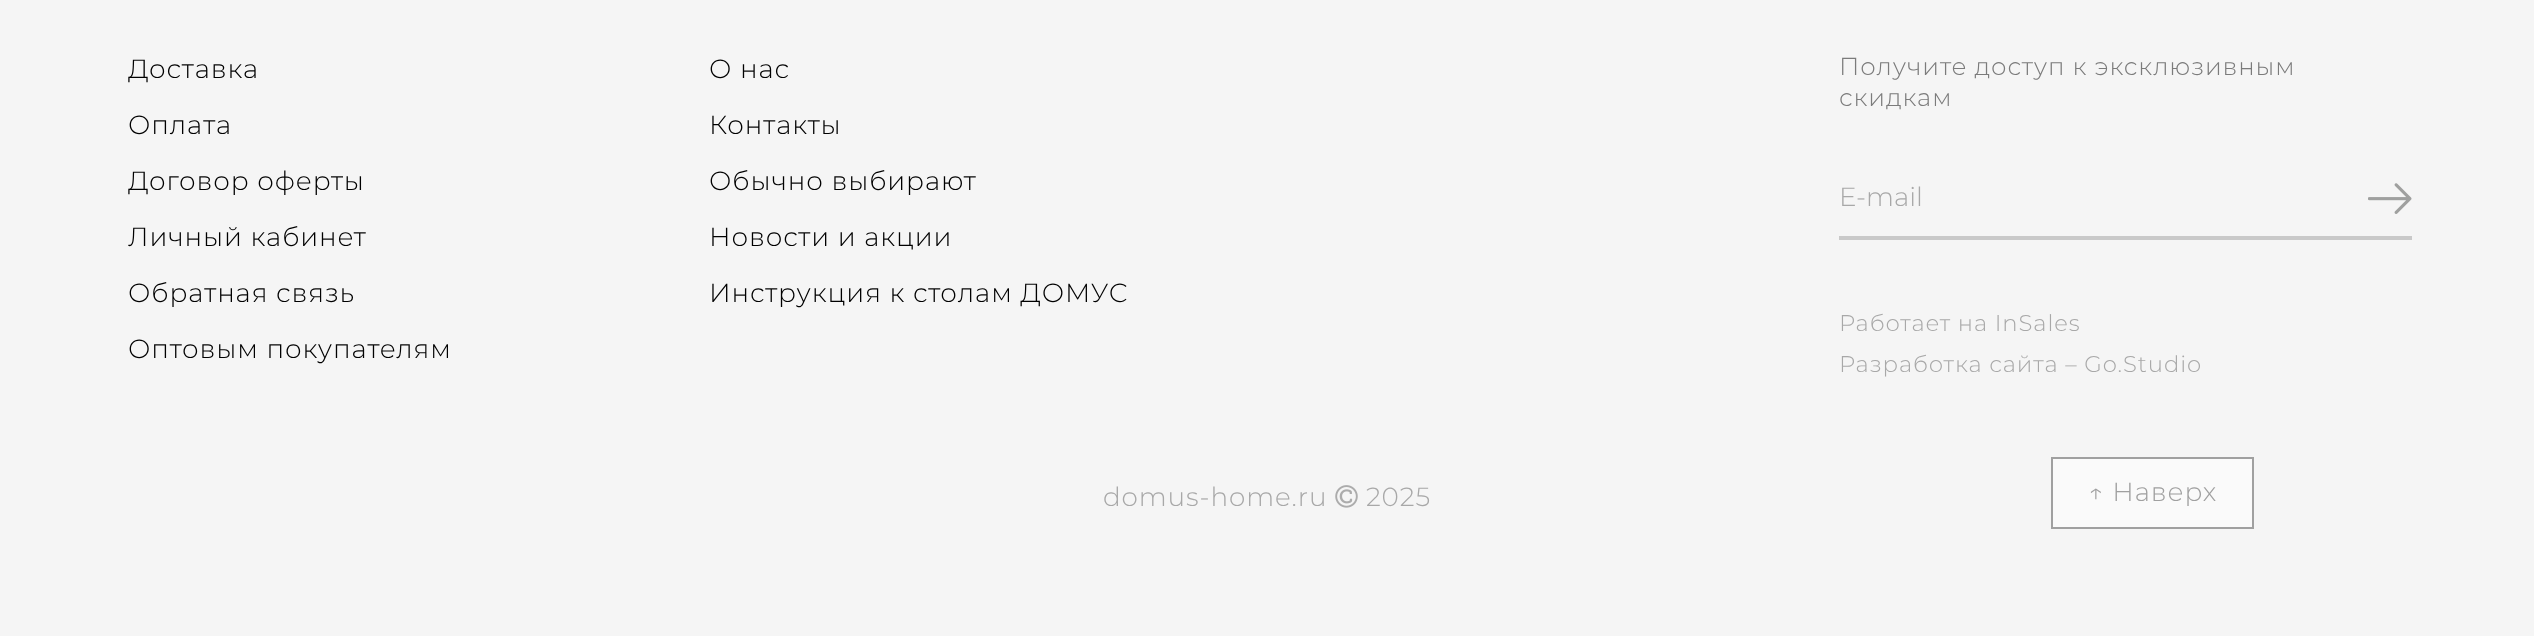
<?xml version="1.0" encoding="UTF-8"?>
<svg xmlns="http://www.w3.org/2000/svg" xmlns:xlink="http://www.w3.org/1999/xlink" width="2534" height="636">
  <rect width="100%" height="100%" fill="#f5f5f5" />
  <rect x="1839" y="236" width="573" height="4" fill="#c9c9c9" />
  <image x="2368" y="183" width="44" height="31" xlink:href="image1.png" />
  <image x="1335" y="485" width="23" height="23" xlink:href="image2.png" />
  <rect x="2052" y="458" width="201" height="70" fill="#fafafa" stroke="#a0a0a0" stroke-width="2" />
  <text x="128" y="78" style="font-family: Montserrat; font-size: 26.25px; font-weight: 300; letter-spacing: 0.9px; fill: #000000">Доставка</text>
  <text x="128" y="134" style="font-family: Montserrat; font-size: 26.25px; font-weight: 300; letter-spacing: 0.9px; fill: #000000">Оплата</text>
  <text x="128" y="190" style="font-family: Montserrat; font-size: 26.25px; font-weight: 300; letter-spacing: 0.9px; fill: #000000">Договор оферты</text>
  <text x="128" y="246" style="font-family: Montserrat; font-size: 26.25px; font-weight: 300; letter-spacing: 0.9px; fill: #000000">Личный кабинет</text>
  <text x="128" y="302" style="font-family: Montserrat; font-size: 26.25px; font-weight: 300; letter-spacing: 0.9px; fill: #000000">Обратная связь</text>
  <text x="128" y="358" style="font-family: Montserrat; font-size: 26.25px; font-weight: 300; letter-spacing: 0.9px; fill: #000000">Оптовым покупателям</text>
  <text x="709" y="78" style="font-family: Montserrat; font-size: 26.25px; font-weight: 300; letter-spacing: 0.9px; fill: #000000">О нас</text>
  <text x="709" y="134" style="font-family: Montserrat; font-size: 26.25px; font-weight: 300; letter-spacing: 0.9px; fill: #000000">Контакты</text>
  <text x="709" y="190" style="font-family: Montserrat; font-size: 26.25px; font-weight: 300; letter-spacing: 0.9px; fill: #000000">Обычно выбирают</text>
  <text x="709" y="246" style="font-family: Montserrat; font-size: 26.25px; font-weight: 300; letter-spacing: 0.9px; fill: #000000">Новости и акции</text>
  <text x="709" y="302" style="font-family: Montserrat; font-size: 26.25px; font-weight: 300; letter-spacing: 0.9px; fill: #000000">Инструкция к столам ДОМУС</text>
  <text x="1839" y="75" style="font-family: Montserrat; font-size: 24.5px; font-weight: 300; letter-spacing: 0.9px; fill: #7b7b7b">Получите доступ к эксклюзивным</text>
  <text x="1839" y="106" style="font-family: Montserrat; font-size: 24.5px; font-weight: 300; letter-spacing: 0.9px; fill: #7b7b7b">скидкам</text>
  <text x="1839" y="206" style="font-family: Montserrat; font-size: 26.25px; font-weight: 300; fill: #a8a8a8">E-mail</text>
  <text x="1839" y="331" style="font-family: Montserrat; font-size: 22.75px; font-weight: 300; letter-spacing: 0.9px; fill: #a8a8a8">Работает на InSales</text>
  <text x="1839" y="372" style="font-family: Montserrat; font-size: 22.75px; font-weight: 300; letter-spacing: 0.9px; fill: #a8a8a8">Разработка сайта – Go.Studio</text>
  <text x="1103" y="506" style="font-family: Montserrat; font-size: 26.25px; font-weight: 300; letter-spacing: 0.9px; fill: #a8a8a8">domus-home.ru</text>
  <text x="1366" y="506" style="font-family: Montserrat; font-size: 26.25px; font-weight: 300; letter-spacing: 0.9px; fill: #a8a8a8">2025</text>
  <text x="2088" y="501" style="font-family: Montserrat; font-size: 26.25px; font-weight: 300; letter-spacing: 0.9px; fill: #a0a0a0">↑ Наверх</text>
</svg>
